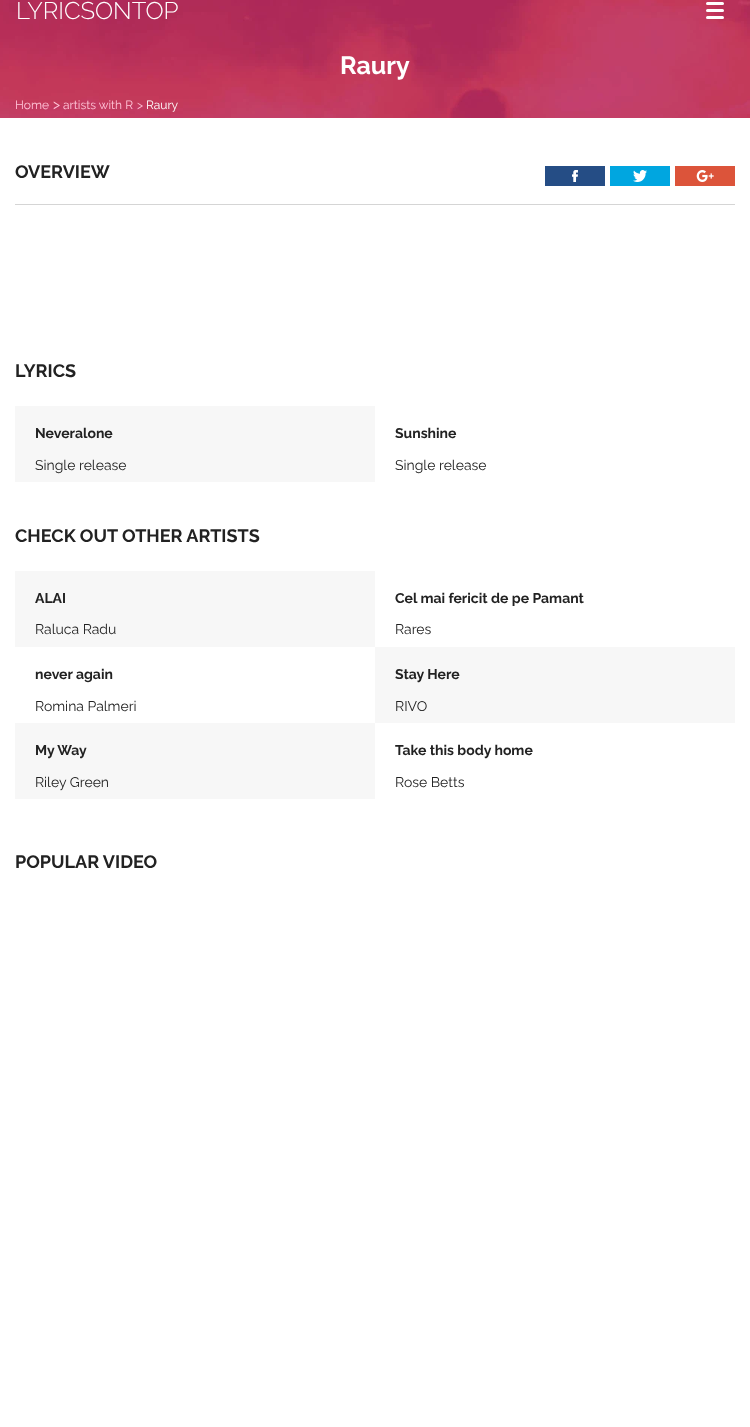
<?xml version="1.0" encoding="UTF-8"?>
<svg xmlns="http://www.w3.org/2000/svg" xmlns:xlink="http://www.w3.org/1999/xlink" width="750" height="1427">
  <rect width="100%" height="100%" fill="#ffffff" />
  <image x="0" y="0" width="750" height="118" xlink:href="image1.png" />
  <rect x="706" y="2" width="18" height="3" rx="1.5" fill="#ffffff" />
  <rect x="706" y="9" width="18" height="3" rx="1.5" fill="#ffffff" />
  <rect x="706" y="16" width="18" height="3" rx="1.5" fill="#ffffff" />
  <rect x="545" y="166" width="60" height="20" fill="#254d85" />
  <image x="572" y="170" width="6" height="12" xlink:href="image2.png" />
  <rect x="610" y="166" width="60" height="20" fill="#00a6e0" />
  <image x="633" y="170" width="14" height="12" xlink:href="image3.png" />
  <rect x="675" y="166" width="60" height="20" fill="#dc543a" />
  <image x="696" y="170" width="18" height="12" xlink:href="image4.png" />
  <rect x="15" y="204" width="720" height="1" fill="#d5d5d5" />
  <rect x="15" y="406" width="360" height="76" fill="#f7f7f7" />
  <rect x="15" y="571" width="360" height="76" fill="#f7f7f7" />
  <rect x="375" y="647" width="360" height="76" fill="#f7f7f7" />
  <rect x="15" y="723" width="360" height="76" fill="#f7f7f7" />
  <text x="16" y="19" style="font-family: Raleway; font-size: 24px; font-weight: 300; fill: #ffffff">LYRICSONTOP</text>
  <text x="340" y="74" style="font-family: Raleway; font-size: 25px; font-weight: bold; fill: #ffffff">Raury</text>
  <text x="15" y="109" style="font-family: Raleway; font-size: 12px; fill: #ffc4d7">Home</text>
  <text x="53" y="109" style="font-family: Raleway; font-size: 14px; fill: #ffc4d7">&gt;</text>
  <text x="63" y="109" style="font-family: Raleway; font-size: 12px; fill: #ffc4d7">artists with R</text>
  <text x="137" y="109" style="font-family: Raleway; font-size: 12px; fill: #ffc4d7">&gt;</text>
  <text x="146" y="109" style="font-family: Raleway; font-size: 12px; fill: #ffffff">Raury</text>
  <text x="15" y="178" style="font-family: Raleway; font-size: 18px; font-weight: bold; fill: #222222">OVERVIEW</text>
  <text x="15" y="377" style="font-family: Raleway; font-size: 18px; font-weight: bold; fill: #222222">LYRICS</text>
  <text x="35" y="438" style="font-family: Raleway; font-size: 14px; font-weight: bold; fill: #222222">Neveralone</text>
  <text x="35" y="470" style="font-family: Raleway; font-size: 14px; fill: #222222">Single release</text>
  <text x="395" y="438" style="font-family: Raleway; font-size: 14px; font-weight: bold; fill: #222222">Sunshine</text>
  <text x="395" y="470" style="font-family: Raleway; font-size: 14px; fill: #222222">Single release</text>
  <text x="15" y="542" style="font-family: Raleway; font-size: 18px; font-weight: bold; fill: #222222">CHECK OUT OTHER ARTISTS</text>
  <text x="35" y="603" style="font-family: Raleway; font-size: 14px; font-weight: bold; fill: #222222">ALAI</text>
  <text x="35" y="634" style="font-family: Raleway; font-size: 14px; fill: #222222">Raluca Radu</text>
  <text x="395" y="603" style="font-family: Raleway; font-size: 14px; font-weight: bold; fill: #222222">Cel mai fericit de pe Pamant</text>
  <text x="395" y="634" style="font-family: Raleway; font-size: 14px; fill: #222222">Rares</text>
  <text x="35" y="679" style="font-family: Raleway; font-size: 14px; font-weight: bold; fill: #222222">never again</text>
  <text x="35" y="711" style="font-family: Raleway; font-size: 14px; fill: #222222">Romina Palmeri</text>
  <text x="395" y="679" style="font-family: Raleway; font-size: 14px; font-weight: bold; fill: #222222">Stay Here</text>
  <text x="395" y="711" style="font-family: Raleway; font-size: 14px; fill: #222222">RIVO</text>
  <text x="35" y="755" style="font-family: Raleway; font-size: 14px; font-weight: bold; fill: #222222">My Way</text>
  <text x="35" y="787" style="font-family: Raleway; font-size: 14px; fill: #222222">Riley Green</text>
  <text x="395" y="755" style="font-family: Raleway; font-size: 14px; font-weight: bold; fill: #222222">Take this body home</text>
  <text x="395" y="787" style="font-family: Raleway; font-size: 14px; fill: #222222">Rose Betts</text>
  <text x="15" y="868" style="font-family: Raleway; font-size: 18px; font-weight: bold; fill: #222222">POPULAR VIDEO</text>
</svg>
